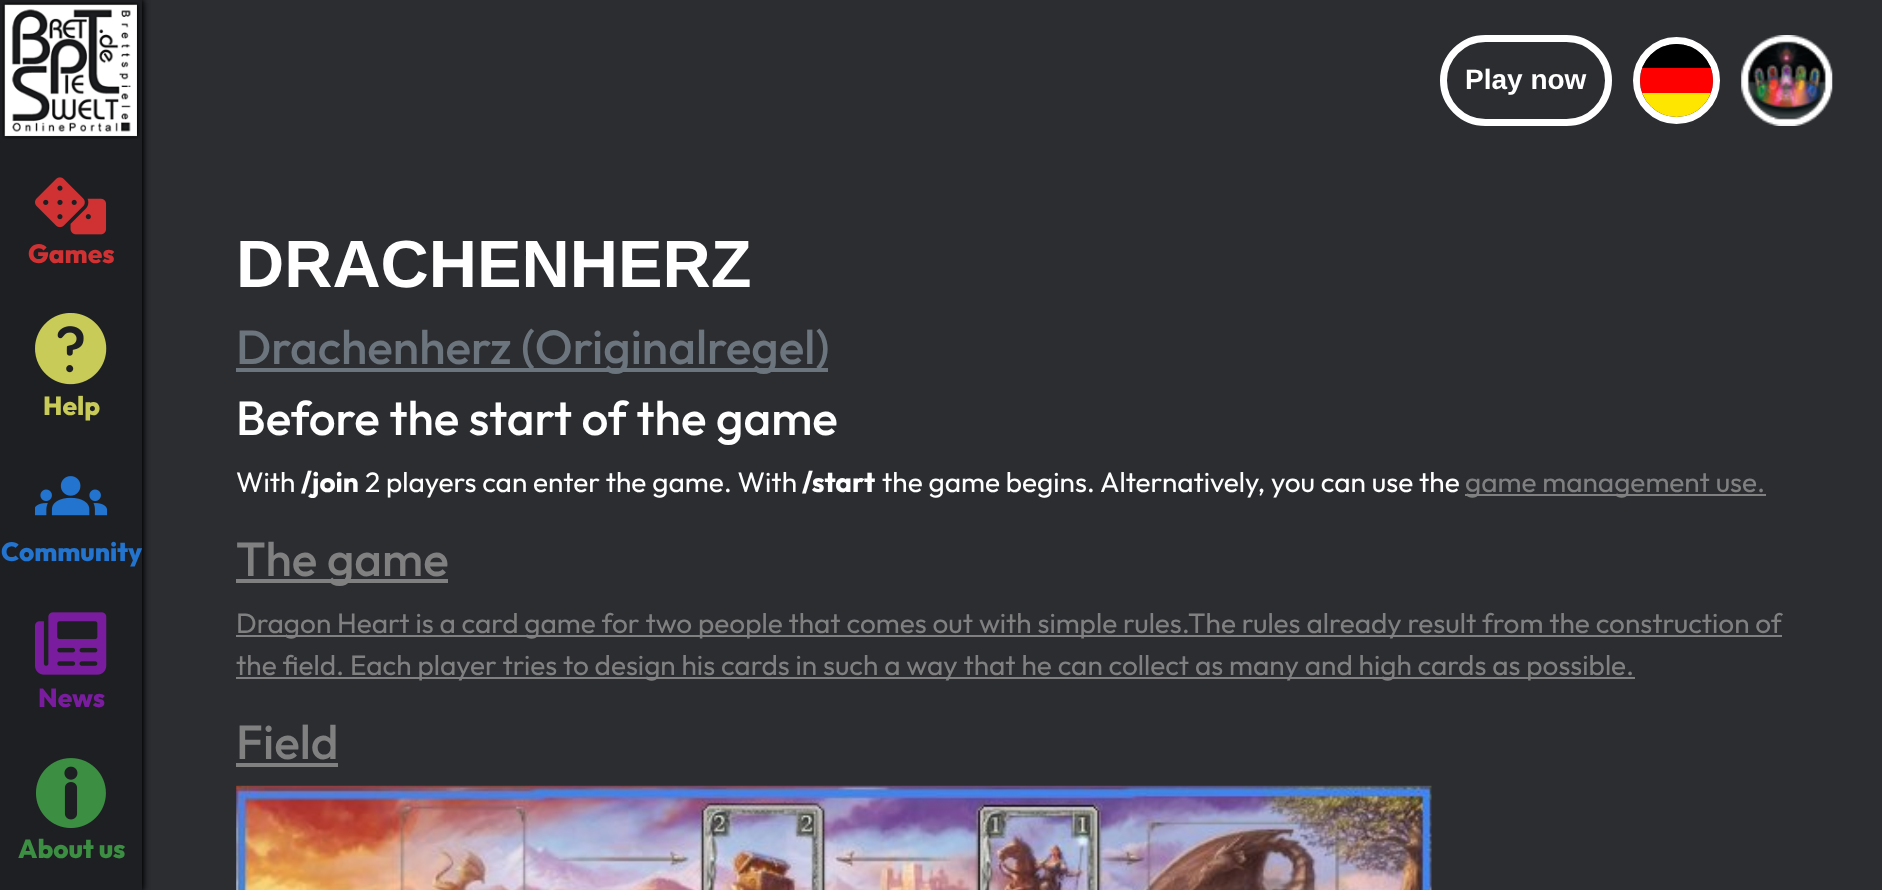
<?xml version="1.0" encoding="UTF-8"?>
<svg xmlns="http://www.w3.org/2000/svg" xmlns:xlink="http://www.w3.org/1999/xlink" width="1882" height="890">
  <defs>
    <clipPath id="clip1"><rect x="1640" y="44" width="73" height="73" rx="36.5" /></clipPath>
  </defs>
  <rect width="100%" height="100%" fill="#2b2d31" />
  <rect width="142" height="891" fill="#000000" filter="blur(3.5px)" />
  <rect width="142" height="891" fill="#000000" filter="blur(3.5px)" />
  <rect width="142" height="890" fill="#1e1f22" />
  <image x="2" y="2" width="138" height="137" xlink:href="image1.png" />
  <image x="35" y="177" width="72" height="58" xlink:href="image2.png" />
  <image x="35" y="313" width="72" height="72" xlink:href="image3.png" />
  <image x="35" y="476" width="72" height="40" xlink:href="image4.png" />
  <image x="35" y="612" width="72" height="63" xlink:href="image5.png" />
  <image x="36" y="758" width="70" height="70" xlink:href="image6.png" />
  <rect x="1443.5" y="38.5" width="165" height="84" rx="42" fill="none" stroke="#ffffff" stroke-width="7" />
  <circle cx="1676.5" cy="80.5" r="40" fill="none" stroke="#ffffff" stroke-width="7" />
  <g clip-path="url(#clip1)">
    <rect x="1642" y="93" width="69" height="24" fill="#ffe600" />
    <rect x="1642" y="44" width="69" height="24" fill="#000000" />
    <rect x="1640" y="68" width="73" height="25" fill="#ff0000" />
  </g>
  <image x="1741" y="35" width="92" height="91" xlink:href="image7.png" />
  <rect x="236" y="368" width="592" height="4" fill="#6c757d" />
  <rect x="1465" y="494" width="301" height="2" fill="#808080" />
  <rect x="236" y="579" width="212" height="4" fill="#808080" />
  <rect x="236" y="635" width="1546" height="2" fill="#808080" />
  <rect x="236" y="677" width="1399" height="2" fill="#808080" />
  <rect x="236" y="763" width="102" height="4" fill="#808080" />
  <image x="236" y="785" width="1196" height="105" xlink:href="image8.png" />
  <text x="28" y="263" style="font-family: Outfit; font-size: 26.25px; font-weight: 800; fill: #d03234">Games</text>
  <text x="43" y="415" style="font-family: Outfit; font-size: 26.25px; font-weight: 800; fill: #c8cb58">Help</text>
  <text x="1" y="561" style="font-family: Outfit; font-size: 26.25px; font-weight: 800; fill: #2374ce">Community</text>
  <text x="38" y="707" style="font-family: Outfit; font-size: 26.25px; font-weight: 800; fill: #7a1c9e">News</text>
  <text x="18" y="858" style="font-family: Outfit; font-size: 26.25px; font-weight: 800; fill: #3c8e43">About us</text>
  <text x="1465" y="89" style="font-family: Liberation Sans; font-size: 28px; font-weight: bold; fill: #ffffff">Play now</text>
  <text x="236" y="287" style="font-family: Liberation Sans; font-size: 66.75px; font-weight: bold; fill: #ffffff">DRACHENHERZ</text>
  <text x="236" y="364" style="font-family: Outfit; font-size: 47.75px; font-weight: 500; fill: #6c757d">Drachenherz (Originalregel)</text>
  <text x="236" y="435" style="font-family: Outfit; font-size: 47.75px; font-weight: 500; fill: #ffffff">Before the start of the game</text>
  <text x="236" y="492" style="font-family: Outfit; font-size: 28px; fill: #ffffff">With</text>
  <text x="301" y="492" style="font-family: Outfit; font-size: 28px; font-weight: bold; fill: #ffffff">/join</text>
  <text x="365" y="492" style="font-family: Outfit; font-size: 28px; fill: #ffffff">2 players can enter the game. With</text>
  <text x="802" y="492" style="font-family: Outfit; font-size: 28px; font-weight: bold; fill: #ffffff">/start</text>
  <text x="882" y="492" style="font-family: Outfit; font-size: 28px; fill: #ffffff">the game begins. Alternatively, you can use the</text>
  <text x="1465" y="492" style="font-family: Outfit; font-size: 28px; fill: #808080">game management use.</text>
  <text x="236" y="576" style="font-family: Outfit; font-size: 47.75px; font-weight: 500; fill: #808080">The game</text>
  <text x="236" y="633" style="font-family: Outfit; font-size: 28px; fill: #808080">Dragon Heart is a card game for two people that comes out with simple rules.The rules already result from the construction of</text>
  <text x="236" y="675" style="font-family: Outfit; font-size: 28px; fill: #808080">the field. Each player tries to design his cards in such a way that he can collect as many and high cards as possible.</text>
  <text x="236" y="759" style="font-family: Outfit; font-size: 47.75px; font-weight: 500; fill: #808080">Field</text>
</svg>
